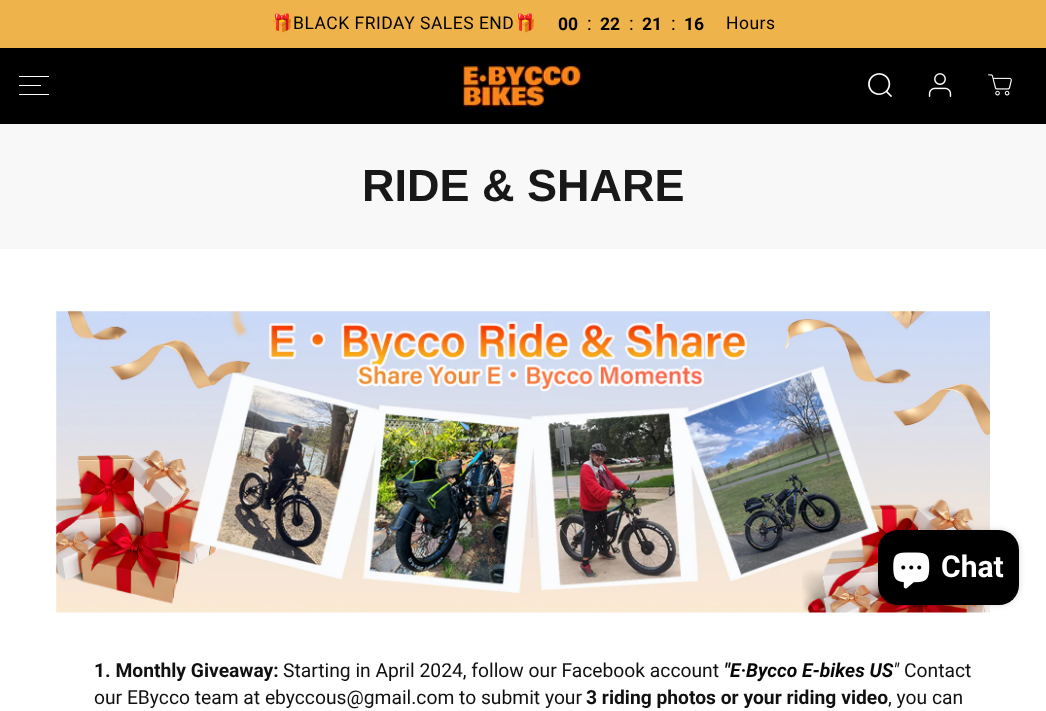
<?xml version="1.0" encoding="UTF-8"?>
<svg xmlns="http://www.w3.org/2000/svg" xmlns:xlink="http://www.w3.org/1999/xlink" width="1046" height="711">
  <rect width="100%" height="100%" fill="#ffffff" />
  <rect width="1046" height="48" fill="#efb34c" />
  <rect y="48" width="1046" height="76" fill="#000000" />
  <rect x="19" y="85" width="22" height="1" fill="#ffffff" />
  <rect x="19" y="76" width="30" height="1" fill="#ffffff" />
  <rect x="19" y="94" width="30" height="1" fill="#ffffff" />
  <image x="460" y="61" width="123" height="49" xlink:href="image1.png" />
  <image x="868" y="73" width="24" height="24" xlink:href="image2.png" />
  <image x="928" y="73" width="24" height="24" xlink:href="image3.png" />
  <image x="988" y="74" width="24" height="22" xlink:href="image4.png" />
  <rect y="124" width="1046" height="125" fill="#f8f8f8" />
  <image x="56" y="311" width="934" height="302" xlink:href="image5.png" />
  <rect x="878" y="530" width="141" height="75" rx="20" fill="#000000" fill-opacity="0.15" filter="blur(3px)" />
  <rect x="878" y="530" width="141" height="75" rx="20" fill="#000000" />
  <image x="893" y="552" width="37" height="37" xlink:href="image6.png" />
  <text x="271" y="29" style="font-family: Noto Color Emoji; font-size: 17.5px; letter-spacing: 0.5px; fill: #000000">🎁</text>
  <text x="293" y="29" style="font-family: Roboto; font-size: 17.5px; letter-spacing: 0.5px; fill: #000000">BLACK FRIDAY SALES END</text>
  <text x="514" y="29" style="font-family: Noto Color Emoji; font-size: 17.5px; letter-spacing: 0.5px; fill: #000000">🎁</text>
  <text x="558" y="30" style="font-family: Roboto; font-size: 17.5px; font-weight: bold; fill: #000000">00</text>
  <text x="587" y="30" style="font-family: Roboto; font-size: 19.25px; fill: #000000">:</text>
  <text x="600" y="30" style="font-family: Roboto; font-size: 17.5px; font-weight: bold; fill: #000000">22</text>
  <text x="629" y="30" style="font-family: Roboto; font-size: 19.25px; fill: #000000">:</text>
  <text x="642" y="30" style="font-family: Roboto; font-size: 17.5px; font-weight: bold; fill: #000000">21</text>
  <text x="671" y="30" style="font-family: Roboto; font-size: 19.25px; fill: #000000">:</text>
  <text x="684" y="30" style="font-family: Roboto; font-size: 17.5px; font-weight: bold; fill: #000000">16</text>
  <text x="726" y="29" style="font-family: Roboto; font-size: 17.5px; letter-spacing: 0.5px; fill: #000000">Hours</text>
  <text x="362" y="201" style="font-family: Arimo; font-size: 45px; font-weight: bold; fill: #181818">RIDE &amp; SHARE</text>
  <text x="94" y="677" style="font-family: Roboto; font-size: 19.25px; font-weight: bold; fill: #101010">1. Monthly Giveaway:</text>
  <text x="283" y="677" style="font-family: Roboto; font-size: 19.25px; fill: #101010">Starting in April 2024, follow our Facebook account</text>
  <text x="724" y="677" style="font-family: Roboto; font-size: 19.25px; font-weight: bold; font-style: italic; fill: #080808">"E·Bycco E-bikes US</text>
  <text x="893" y="677" style="font-family: Roboto; font-size: 19.25px; font-style: italic; fill: #080808">"</text>
  <text x="904" y="677" style="font-family: Roboto; font-size: 19.25px; fill: #101010">Contact</text>
  <text x="94" y="704" style="font-family: Roboto; font-size: 19.25px; fill: #101010">our EBycco team at ebyccous@gmail.com to submit your</text>
  <text x="586" y="704" style="font-family: Roboto; font-size: 19.25px; font-weight: bold; fill: #101010">3 riding photos or your riding video</text>
  <text x="888" y="704" style="font-family: Roboto; font-size: 19.25px; fill: #101010">, you can</text>
  <text x="941" y="577" style="font-family: Roboto; font-size: 30px; font-weight: bold; fill: #ffffff">Chat</text>
</svg>
